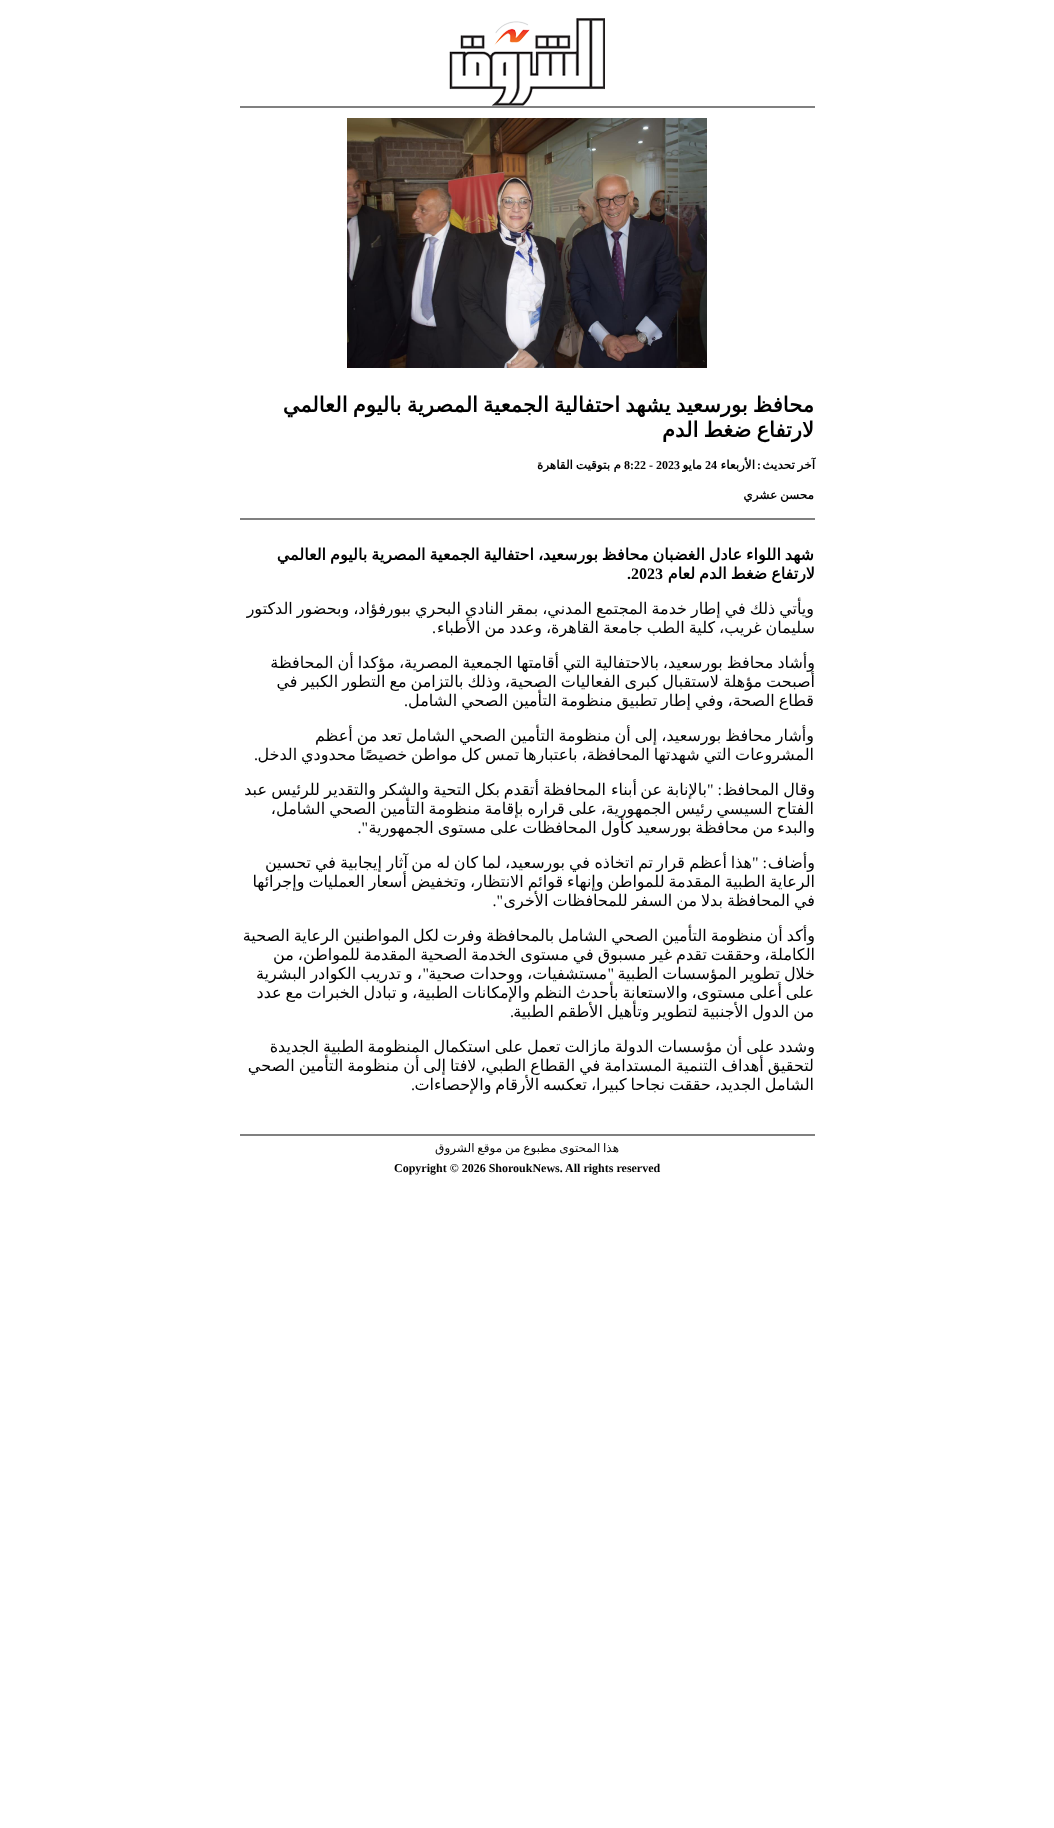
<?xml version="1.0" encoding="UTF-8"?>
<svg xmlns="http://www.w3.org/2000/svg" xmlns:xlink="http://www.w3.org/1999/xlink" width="1054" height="1828">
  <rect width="100%" height="100%" fill="#ffffff" />
  <image x="449" y="18" width="156" height="88" xlink:href="image1.png" />
  <rect x="240" y="106" width="575" height="2" fill="#808080" />
  <image x="347" y="118" width="360" height="250" xlink:href="image2.png" />
  <rect x="240" y="518" width="575" height="2" fill="#808080" />
  <rect x="240" y="1134" width="575" height="2" fill="#808080" />
  <text x="814" y="412" word-spacing="-1.5" style="font-family: DejaVu Sans; font-size: 21px; font-weight: bold; direction: rtl; fill: #000000">محافظ بورسعيد يشهد احتفالية الجمعية المصرية باليوم العالمي</text>
  <text x="814" y="437" word-spacing="-1.5" style="font-family: DejaVu Sans; font-size: 21px; font-weight: bold; direction: rtl; fill: #000000">لارتفاع ضغط الدم</text>
  <text x="815" y="469" word-spacing="-1" style="font-family: DejaVu Sans; font-size: 12px; font-weight: bold; direction: rtl; fill: #000000">آخر تحديث</text>
  <text x="761" y="469" style="font-family: Liberation Serif; font-size: 12px; font-weight: bold; direction: rtl; fill: #000000">:</text>
  <text x="755" y="469" style="font-family: DejaVu Sans; font-size: 12px; font-weight: bold; direction: rtl; fill: #000000">الأربعاء</text>
  <text x="705" y="469" style="font-family: Liberation Serif; font-size: 12px; font-weight: bold; fill: #000000">24</text>
  <text x="702" y="469" style="font-family: DejaVu Sans; font-size: 12px; font-weight: bold; direction: rtl; fill: #000000">مايو</text>
  <text x="624" y="469" style="font-family: Liberation Serif; font-size: 12px; font-weight: bold; fill: #000000">8:22 - 2023</text>
  <text x="621" y="469" style="font-family: DejaVu Sans; font-size: 12px; font-weight: bold; direction: rtl; fill: #000000">م</text>
  <text x="610" y="469" word-spacing="-1" style="font-family: DejaVu Sans; font-size: 12px; font-weight: bold; direction: rtl; fill: #000000">بتوقيت القاهرة</text>
  <text x="814" y="499" word-spacing="-1" style="font-family: DejaVu Sans; font-size: 12px; font-weight: bold; direction: rtl; fill: #000000">محسن عشري</text>
  <text x="814" y="560" word-spacing="-1.1" style="font-family: DejaVu Sans; font-size: 16px; font-weight: bold; direction: rtl; fill: #000000">شهد اللواء عادل الغضبان محافظ بورسعيد، احتفالية الجمعية المصرية باليوم العالمي</text>
  <text x="815" y="579" word-spacing="-1.1" style="font-family: DejaVu Sans; font-size: 16px; font-weight: bold; direction: rtl; fill: #000000">لارتفاع ضغط الدم لعام</text>
  <text x="627" y="579" style="font-family: Liberation Serif; font-size: 16px; font-weight: bold; fill: #000000">.2023</text>
  <text x="814" y="614" word-spacing="-1.1" style="font-family: DejaVu Sans; font-size: 16px; direction: rtl; fill: #000000">ويأتي ذلك في إطار خدمة المجتمع المدني، بمقر النادي البحري ببورفؤاد، وبحضور الدكتور</text>
  <text x="815" y="633" word-spacing="-1.1" style="font-family: DejaVu Sans; font-size: 16px; direction: rtl; fill: #000000">سليمان غريب، كلية الطب جامعة القاهرة، وعدد من الأطباء</text>
  <text x="436" y="633" style="font-family: Liberation Serif; font-size: 16px; direction: rtl; fill: #000000">.</text>
  <text x="815" y="668" word-spacing="-1.1" style="font-family: DejaVu Sans; font-size: 16px; direction: rtl; fill: #000000">وأشاد محافظ بورسعيد، بالاحتفالية التي أقامتها الجمعية المصرية، مؤكدا أن المحافظة</text>
  <text x="815" y="687" word-spacing="-1.1" style="font-family: DejaVu Sans; font-size: 16px; direction: rtl; fill: #000000">أصبحت مؤهلة لاستقبال كبرى الفعاليات الصحية، وذلك بالتزامن مع التطور الكبير في</text>
  <text x="814" y="706" word-spacing="-1.1" style="font-family: DejaVu Sans; font-size: 16px; direction: rtl; fill: #000000">قطاع الصحة، وفي إطار تطبيق منظومة التأمين الصحي الشامل</text>
  <text x="408" y="706" style="font-family: Liberation Serif; font-size: 16px; direction: rtl; fill: #000000">.</text>
  <text x="814" y="741" word-spacing="-1.1" style="font-family: DejaVu Sans; font-size: 16px; direction: rtl; fill: #000000">وأشار محافظ بورسعيد، إلى أن منظومة التأمين الصحي الشامل تعد من أعظم</text>
  <text x="814" y="760" word-spacing="-1.1" style="font-family: DejaVu Sans; font-size: 16px; direction: rtl; fill: #000000">المشروعات التي شهدتها المحافظة، باعتبارها تمس كل مواطن خصيصًا محدودي الدخل</text>
  <text x="258" y="760" style="font-family: Liberation Serif; font-size: 16px; direction: rtl; fill: #000000">.</text>
  <text x="815" y="795" style="font-family: DejaVu Sans; font-size: 16px; direction: rtl; fill: #000000">وقال</text>
  <text x="779" y="795" style="font-family: DejaVu Sans; font-size: 16px; direction: rtl; fill: #000000">المحافظ</text>
  <text x="722" y="795" style="font-family: Liberation Serif; font-size: 16px; direction: rtl; fill: #000000">: "</text>
  <text x="707" y="795" style="font-family: DejaVu Sans; font-size: 16px; direction: rtl; fill: #000000">بالإنابة</text>
  <text x="662" y="795" style="font-family: DejaVu Sans; font-size: 16px; direction: rtl; fill: #000000">عن</text>
  <text x="637" y="795" style="font-family: DejaVu Sans; font-size: 16px; direction: rtl; fill: #000000">أبناء</text>
  <text x="606" y="795" style="font-family: DejaVu Sans; font-size: 16px; direction: rtl; fill: #000000">المحافظة</text>
  <text x="539" y="795" style="font-family: DejaVu Sans; font-size: 16px; direction: rtl; fill: #000000">أتقدم</text>
  <text x="500" y="795" style="font-family: DejaVu Sans; font-size: 16px; direction: rtl; fill: #000000">بكل</text>
  <text x="471" y="795" style="font-family: DejaVu Sans; font-size: 16px; direction: rtl; fill: #000000">التحية</text>
  <text x="429" y="795" style="font-family: DejaVu Sans; font-size: 16px; direction: rtl; fill: #000000">والشكر</text>
  <text x="376" y="795" style="font-family: DejaVu Sans; font-size: 16px; direction: rtl; fill: #000000">والتقدير</text>
  <text x="320" y="795" style="font-family: DejaVu Sans; font-size: 16px; direction: rtl; fill: #000000">للرئيس</text>
  <text x="267" y="795" style="font-family: DejaVu Sans; font-size: 16px; direction: rtl; fill: #000000">عبد</text>
  <text x="814" y="814" word-spacing="-1.1" style="font-family: DejaVu Sans; font-size: 16px; direction: rtl; fill: #000000">الفتاح السيسي رئيس الجمهورية، على قراره بإقامة منظومة التأمين الصحي الشامل،</text>
  <text x="815" y="833" word-spacing="-1.1" style="font-family: DejaVu Sans; font-size: 16px; direction: rtl; fill: #000000">والبدء من محافظة بورسعيد كأول المحافظات على مستوى الجمهورية</text>
  <text x="368" y="833" style="font-family: Liberation Serif; font-size: 16px; direction: rtl; fill: #000000">".</text>
  <text x="815" y="868" style="font-family: DejaVu Sans; font-size: 16px; direction: rtl; fill: #000000">وأضاف</text>
  <text x="767" y="868" style="font-family: Liberation Serif; font-size: 16px; direction: rtl; fill: #000000">: "</text>
  <text x="752" y="868" style="font-family: DejaVu Sans; font-size: 16px; direction: rtl; fill: #000000">هذا</text>
  <text x="727" y="868" style="font-family: DejaVu Sans; font-size: 16px; direction: rtl; fill: #000000">أعظم</text>
  <text x="685" y="868" style="font-family: DejaVu Sans; font-size: 16px; direction: rtl; fill: #000000">قرار</text>
  <text x="653" y="868" style="font-family: DejaVu Sans; font-size: 16px; direction: rtl; fill: #000000">تم</text>
  <text x="634" y="868" style="font-family: DejaVu Sans; font-size: 16px; direction: rtl; fill: #000000">اتخاذه</text>
  <text x="590" y="868" style="font-family: DejaVu Sans; font-size: 16px; direction: rtl; fill: #000000">في</text>
  <text x="565" y="868" style="font-family: DejaVu Sans; font-size: 16px; direction: rtl; fill: #000000">بورسعيد،</text>
  <text x="501" y="868" style="font-family: DejaVu Sans; font-size: 16px; direction: rtl; fill: #000000">لما</text>
  <text x="478" y="868" style="font-family: DejaVu Sans; font-size: 16px; direction: rtl; fill: #000000">كان</text>
  <text x="450" y="868" style="font-family: DejaVu Sans; font-size: 16px; direction: rtl; fill: #000000">له</text>
  <text x="432" y="868" style="font-family: DejaVu Sans; font-size: 16px; direction: rtl; fill: #000000">من</text>
  <text x="408" y="868" style="font-family: DejaVu Sans; font-size: 16px; direction: rtl; fill: #000000">آثار</text>
  <text x="382" y="868" style="font-family: DejaVu Sans; font-size: 16px; direction: rtl; fill: #000000">إيجابية</text>
  <text x="336" y="868" style="font-family: DejaVu Sans; font-size: 16px; direction: rtl; fill: #000000">في</text>
  <text x="311" y="868" style="font-family: DejaVu Sans; font-size: 16px; direction: rtl; fill: #000000">تحسين</text>
  <text x="815" y="887" word-spacing="-1.1" style="font-family: DejaVu Sans; font-size: 16px; direction: rtl; fill: #000000">الرعاية الطبية المقدمة للمواطن وإنهاء قوائم الانتظار، وتخفيض أسعار العمليات وإجرائها</text>
  <text x="815" y="906" word-spacing="-1.1" style="font-family: DejaVu Sans; font-size: 16px; direction: rtl; fill: #000000">في المحافظة بدلا من السفر للمحافظات الأخرى</text>
  <text x="503" y="906" style="font-family: Liberation Serif; font-size: 16px; direction: rtl; fill: #000000">".</text>
  <text x="815" y="941" word-spacing="-1.1" style="font-family: DejaVu Sans; font-size: 16px; direction: rtl; fill: #000000">وأكد أن منظومة التأمين الصحي الشامل بالمحافظة وفرت لكل المواطنين الرعاية الصحية</text>
  <text x="815" y="960" word-spacing="-1.1" style="font-family: DejaVu Sans; font-size: 16px; direction: rtl; fill: #000000">الكاملة، وحققت تقدم غير مسبوق في مستوى الخدمة الصحية المقدمة للمواطن، من</text>
  <text x="815" y="979" word-spacing="-1" style="font-family: DejaVu Sans; font-size: 16px; direction: rtl; fill: #000000">خلال تطوير المؤسسات الطبية</text>
  <text x="614" y="979" style="font-family: Liberation Serif; font-size: 16px; direction: rtl; fill: #000000">"</text>
  <text x="607" y="979" word-spacing="-1" style="font-family: DejaVu Sans; font-size: 16px; direction: rtl; fill: #000000">مستشفيات، ووحدات صحية</text>
  <text x="422" y="979" word-spacing="-1" style="font-family: DejaVu Sans; font-size: 16px; direction: rtl; fill: #000000">، و تدريب الكوادر البشرية</text>
  <text x="429" y="979" style="font-family: Liberation Serif; font-size: 16px; direction: rtl; fill: #000000">"</text>
  <text x="814" y="998" word-spacing="-1.1" style="font-family: DejaVu Sans; font-size: 16px; direction: rtl; fill: #000000">على أعلى مستوى، والاستعانة بأحدث النظم والإمكانات الطبية، و تبادل الخبرات مع عدد</text>
  <text x="814" y="1017" word-spacing="-1.1" style="font-family: DejaVu Sans; font-size: 16px; direction: rtl; fill: #000000">من الدول الأجنبية لتطوير وتأهيل الأطقم الطبية</text>
  <text x="514" y="1017" style="font-family: Liberation Serif; font-size: 16px; direction: rtl; fill: #000000">.</text>
  <text x="815" y="1052" word-spacing="-1.1" style="font-family: DejaVu Sans; font-size: 16px; direction: rtl; fill: #000000">وشدد على أن مؤسسات الدولة مازالت تعمل على استكمال المنظومة الطبية الجديدة</text>
  <text x="814" y="1071" word-spacing="-1.1" style="font-family: DejaVu Sans; font-size: 16px; direction: rtl; fill: #000000">لتحقيق أهداف التنمية المستدامة في القطاع الطبي، لافتا إلى أن منظومة التأمين الصحي</text>
  <text x="814" y="1090" word-spacing="-1.1" style="font-family: DejaVu Sans; font-size: 16px; direction: rtl; fill: #000000">الشامل الجديد، حققت نجاحا كبيرا، تعكسه الأرقام والإحصاءات</text>
  <text x="415" y="1090" style="font-family: Liberation Serif; font-size: 16px; direction: rtl; fill: #000000">.</text>
  <text x="619" y="1152" word-spacing="-1" style="font-family: DejaVu Sans; font-size: 12px; direction: rtl; fill: #000000">هذا المحتوى مطبوع من موقع الشروق</text>
  <text x="394" y="1172" style="font-family: Liberation Serif; font-size: 12px; font-weight: bold; fill: #000000">Copyright © 2026 ShoroukNews. All rights reserved</text>
</svg>
